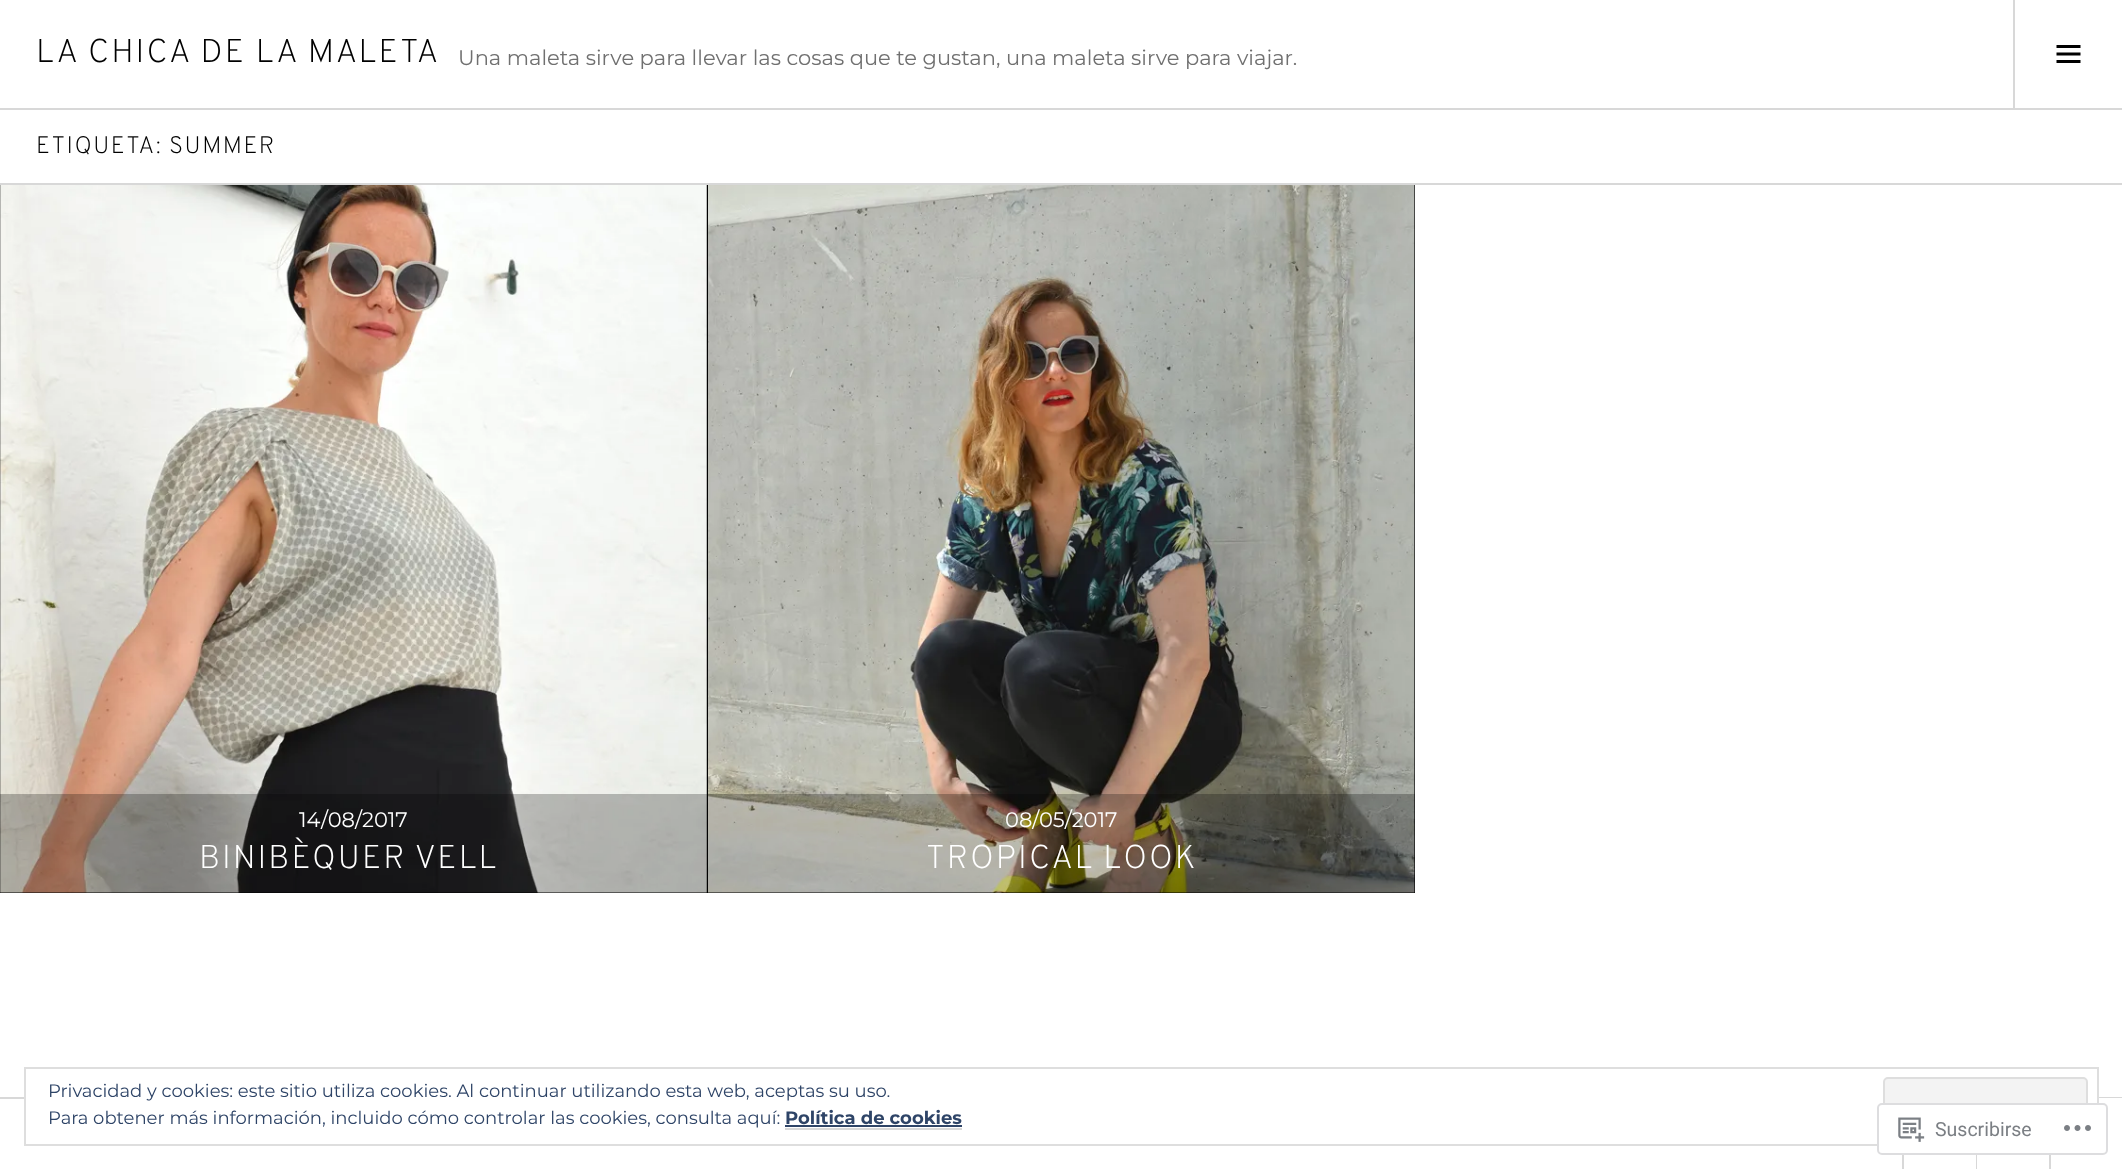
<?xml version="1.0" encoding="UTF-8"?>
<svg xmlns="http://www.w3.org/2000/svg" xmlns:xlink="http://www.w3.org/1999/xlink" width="2122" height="1169">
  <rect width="100%" height="100%" fill="#ffffff" />
  <rect y="108" width="2122" height="2" fill="#d8d8d8" />
  <rect x="2013" width="2" height="108" fill="#d8d8d8" />
  <image x="2056" y="45" width="25" height="18" xlink:href="image1.png" />
  <rect y="183" width="2122" height="2" fill="#d8d8d8" />
  <rect y="185" width="1415" height="708" fill="#000000" />
  <image x="0" y="185" width="707" height="708" xlink:href="image2.png" />
  <rect y="794" width="707" height="99" fill="#000000" fill-opacity="0.25" />
  <image x="708" y="185" width="707" height="708" xlink:href="image3.png" />
  <rect x="708" y="794" width="707" height="99" fill="#000000" fill-opacity="0.25" />
  <rect y="1097" width="2122" height="2" fill="#d8d8d8" />
  <rect x="1903" y="1098" width="73" height="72" fill="none" stroke="#d8d8d8" stroke-width="2" />
  <rect x="1975" y="1146" width="1" height="23" fill="#ffffff" />
  <rect x="1977" y="1098" width="73" height="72" fill="none" stroke="#d8d8d8" stroke-width="2" />
  <rect x="1977" y="1146" width="1" height="23" fill="#ffffff" />
  <rect x="2051" y="1098" width="71" height="1" fill="#ffffff" />
  <rect x="26" y="1097" width="2071" height="47" fill="#ffffff" />
  <rect x="25" y="1068" width="2073" height="77" fill="none" stroke="#dedede" stroke-width="2" />
  <rect x="1884" y="1078" width="203" height="57" rx="4" fill="#f3f3f3" stroke="#dedede" stroke-width="2" />
  <rect x="785" y="1128" width="177" height="2" fill="#d8d8d8" />
  <rect x="785" y="1125" width="177" height="2" fill="#2e4467" />
  <rect x="1877" y="1103" width="231" height="52" rx="5" fill="#ffffff" fill-opacity="0.98" />
  <rect x="1878" y="1104" width="229" height="50" rx="4" fill="none" stroke="#dcdcde" stroke-opacity="0.98" stroke-width="2" />
  <image x="1898" y="1117" width="27" height="25" xlink:href="image4.png" />
  <image x="2064" y="1125" width="27" height="6" xlink:href="image5.png" />
  <text x="36" y="62" style="font-family: Overpass; font-size: 33px; font-weight: 200; letter-spacing: 2.1px; fill: #000000">LA CHICA DE LA MALETA</text>
  <text x="458" y="65" style="font-family: Montserrat; font-size: 21px; fill: #707070">Una maleta sirve para llevar las cosas que te gustan, una maleta sirve para viajar.</text>
  <text x="36" y="153" style="font-family: Overpass; font-size: 24px; font-weight: 200; letter-spacing: 1.5px; fill: #000000">ETIQUETA: SUMMER</text>
  <text x="299" y="827" style="font-family: Montserrat; font-size: 21px; fill: #ffffff">14/08/2017</text>
  <text x="199" y="868" style="font-family: Overpass; font-size: 33px; font-weight: 200; letter-spacing: 2.1px; fill: #ffffff">BINIBÈQUER VELL</text>
  <text x="1005" y="827" style="font-family: Montserrat; font-size: 21px; fill: #ffffff">08/05/2017</text>
  <text x="926" y="868" style="font-family: Overpass; font-size: 33px; font-weight: 200; letter-spacing: 2.1px; fill: #ffffff">TROPICAL LOOK</text>
  <text x="48" y="1097" style="font-family: Montserrat; font-size: 18px; fill: #2e4467">Privacidad y cookies: este sitio utiliza cookies. Al continuar utilizando esta web, aceptas su uso.</text>
  <text x="48" y="1124" style="font-family: Montserrat; font-size: 18px; fill: #2e4467">Para obtener más información, incluido cómo controlar las cookies, consulta aquí:</text>
  <text x="785" y="1124" style="font-family: Montserrat; font-size: 18px; font-weight: bold; fill: #2e4467">Política de cookies</text>
  <text x="1935" y="1136" style="font-family: Roboto; font-size: 19.5px; fill: #7b7f84">Suscribirse</text>
</svg>
